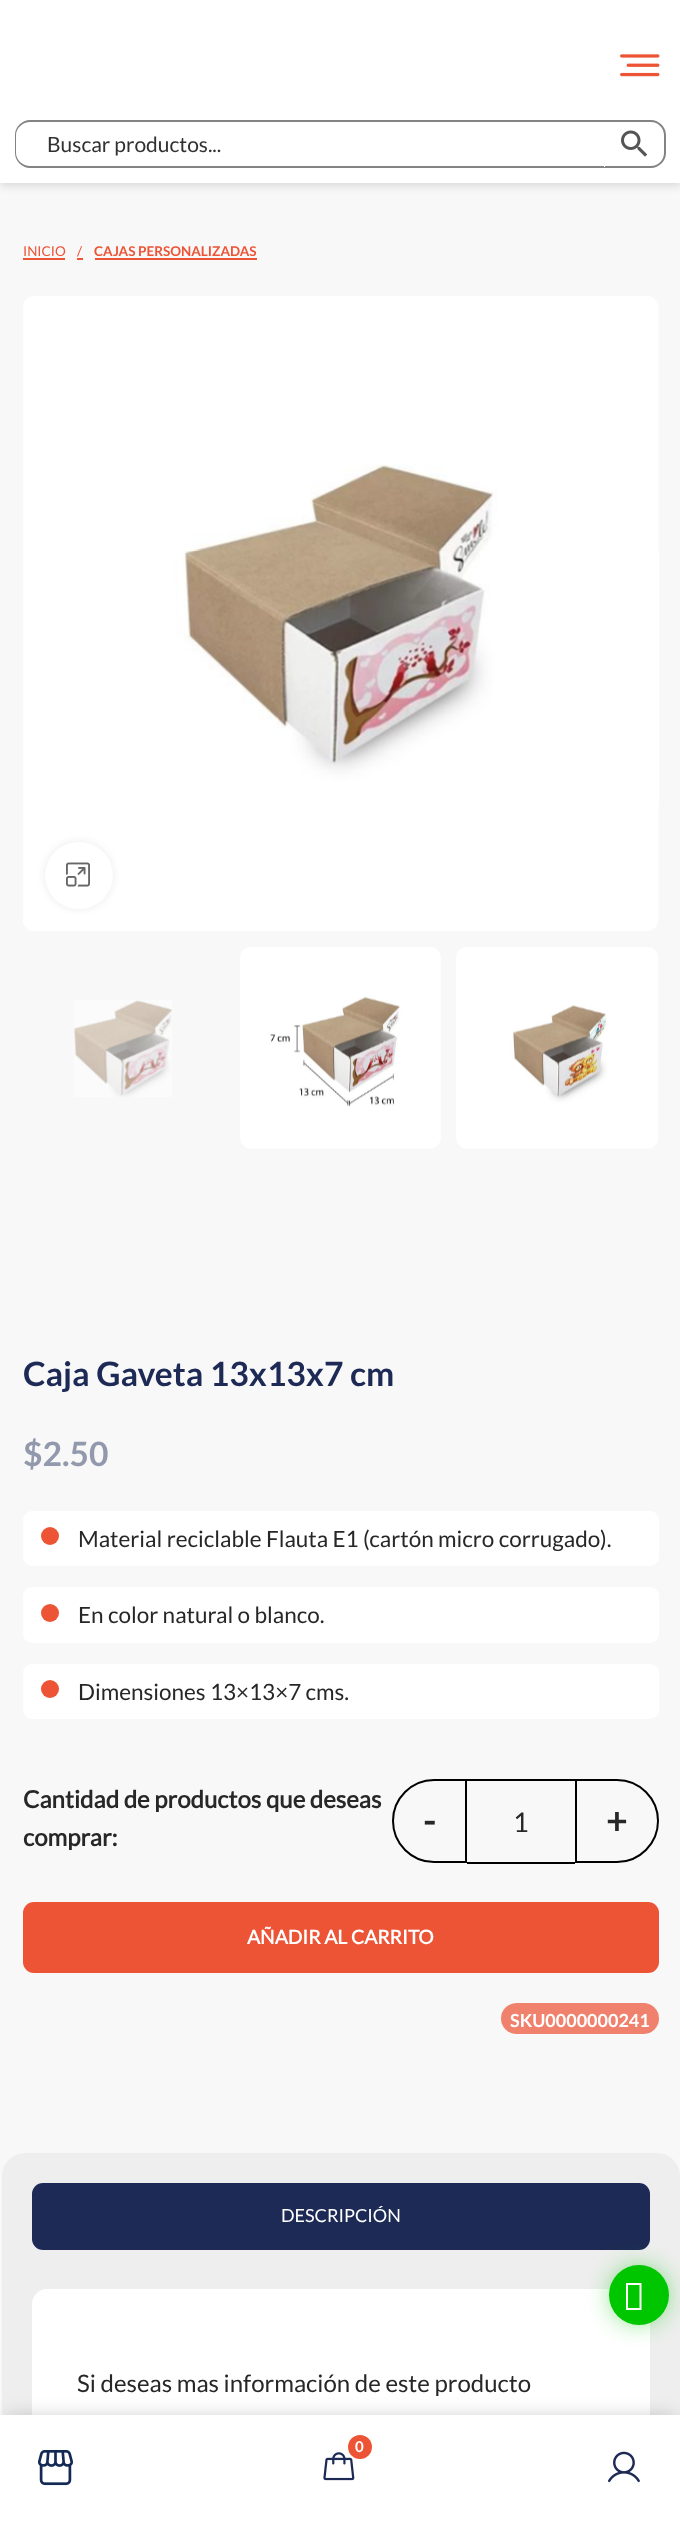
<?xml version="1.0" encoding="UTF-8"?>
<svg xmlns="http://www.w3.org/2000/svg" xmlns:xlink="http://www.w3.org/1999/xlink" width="680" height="2528">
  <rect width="100%" height="100%" fill="#f8f8f8" />
  <rect y="3" width="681" height="183" fill="#000000" fill-opacity="0.12" filter="blur(4px)" />
  <rect width="680" height="183" fill="#ffffff" />
  <image x="620" y="54" width="40" height="23" xlink:href="image1.png" />
  <path d="M 603 120 h 48 c 8 0 15 7 15 15 v 18 c 0 8 -7 15 -15 15 h -48 z m 0 2 h 48 c 7 0 13 6 13 13 v 18 c 0 7 -6 13 -13 13 h -48 z" fill="#838383" fill-rule="evenodd" />
  <path d="M 31 122 h 574 v 45 h -574 c -7.5 0 -14 -6.5 -14 -14 v -17 c 0 -7.5 6.5 -14 14 -14 z" fill="#ffffff" />
  <path d="M 30 120 h 574 v 48 h -574 c -8 0 -15 -7 -15 -15 v -18 c 0 -8 7 -15 15 -15 z m 0 2 h 574 v 44 h -574 c -7 0 -14 -6 -14 -13 v -18 c 0 -7 7 -13 14 -13 z" fill="#838383" fill-rule="evenodd" />
  <image x="621" y="130" width="27" height="27" xlink:href="image2.png" />
  <rect x="2" y="2153" width="678" height="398" rx="23" fill="#eeeeee" />
  <rect x="32" y="2289" width="618" height="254" rx="15" fill="#ffffff" />
  <rect x="6" y="2415" width="669" height="102" fill="#000000" fill-opacity="0.17" filter="blur(9px)" />
  <rect y="2415" width="680" height="113" fill="#ffffff" />
  <circle cx="360" cy="2447" r="12" fill="#ed5335" />
  <image x="323" y="2452" width="32" height="29" xlink:href="image3.png" />
  <image x="38" y="2450" width="35" height="36" xlink:href="image4.png" />
  <image x="608" y="2451" width="32" height="32" xlink:href="image5.png" />
  <rect x="23" y="258" width="42" height="2" fill="#ed5335" />
  <rect x="77" y="258" width="6" height="2" fill="#ed5335" />
  <rect x="95" y="258" width="162" height="2" fill="#ed5335" />
  <image x="23" y="296" width="636" height="635" xlink:href="image6.png" />
  <rect x="45" y="842" width="68" height="67" rx="33.5" fill="#000000" fill-opacity="0.08" filter="blur(4px)" />
  <rect x="45" y="842" width="68" height="67" rx="33.5" fill="#ffffff" />
  <image x="66" y="862" width="24" height="25" xlink:href="image7.png" />
  <image x="74" y="1000" width="98" height="97" xlink:href="image8.png" />
  <image x="240" y="947" width="201" height="202" xlink:href="image9.png" />
  <image x="456" y="947" width="202" height="202" xlink:href="image10.png" />
  <rect x="23" y="1511" width="636" height="55" rx="9" fill="#ffffff" />
  <circle cx="50" cy="1536" r="9" fill="#ed5335" />
  <rect x="23" y="1587" width="636" height="56" rx="9" fill="#ffffff" />
  <circle cx="50" cy="1613" r="9" fill="#ed5335" />
  <rect x="23" y="1664" width="636" height="55" rx="9" fill="#ffffff" />
  <circle cx="50" cy="1689" r="9" fill="#ed5335" />
  <path d="M 434 1780 h 32 v 82 h -32 c -22.5 0 -41 -18.5 -41 -41 c 0 -22.5 18.5 -41 41 -41 z" fill="none" stroke="#000000" stroke-width="2" />
  <rect x="467" y="1779" width="108" height="2" fill="#000000" />
  <rect x="467" y="1862" width="108" height="2" fill="#000000" />
  <path d="M 576 1780 h 41 c 22.5 0 41 18.5 41 41 c 0 22.5 -18.5 41 -41 41 h -41 z" fill="none" stroke="#000000" stroke-width="2" />
  <rect x="23" y="1902" width="636" height="71" rx="11" fill="#ed5335" />
  <rect x="501" y="2003" width="158" height="31" rx="15.5" fill="#f0816c" />
  <rect x="32" y="2183" width="618" height="67" rx="11" fill="#1d2a55" />
  <rect x="618" y="2274" width="42" height="42" rx="21" fill="#00c600" filter="blur(15px)" />
  <circle cx="639" cy="2295" r="30" fill="#00c600" />
  <path d="M 626 2310 v -27 h 15.5 v 27 z m 2 -2 h 11.5 v -23 h -11.5 z" fill="#ffffff" />
  <text x="47" y="152" style="font-family: 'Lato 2'; font-size: 21px; fill: #313131">Buscar productos...</text>
  <text x="355" y="2452" style="font-family: Lato; font-size: 15px; font-weight: bold; fill: #ffffff">0</text>
  <text x="23" y="256" style="font-family: Lato; font-size: 13.5px; fill: #ed5335">INICIO</text>
  <text x="77" y="256" style="font-family: Lato; font-size: 13.5px; fill: #ed5335">/</text>
  <text x="94" y="256" style="font-family: Lato; font-size: 13.5px; font-weight: bold; fill: #ed5335">CAJAS PERSONALIZADAS</text>
  <text x="23" y="1386" style="font-family: Lato; font-size: 33.6px; font-weight: bold; fill: #1d2a55">Caja Gaveta 13x13x7 cm</text>
  <text x="23" y="1466" style="font-family: Lato; font-size: 33.6px; font-weight: bold; fill: #9399ad">$2.50</text>
  <text x="78" y="1547" style="font-family: Lato; font-size: 22.5px; fill: #272727">Material reciclable Flauta E1 (cartón micro corrugado).</text>
  <text x="78" y="1623" style="font-family: Lato; font-size: 22.5px; fill: #272727">En color natural o blanco.</text>
  <text x="78" y="1700" style="font-family: Lato; font-size: 22.5px; fill: #272727">Dimensiones 13×13×7 cms.</text>
  <text x="23" y="1808" style="font-family: 'Lato 2'; font-size: 24px; font-weight: bold; fill: #272727">Cantidad de productos que deseas</text>
  <text x="23" y="1846" style="font-family: 'Lato 2'; font-size: 24px; font-weight: bold; fill: #272727">comprar:</text>
  <text x="423" y="1834" style="font-family: 'Lato 2'; font-size: 36px; font-weight: bold; fill: #272727">-</text>
  <text x="513" y="1832" style="font-family: 'Lato 2'; font-size: 27px; fill: #272727">1</text>
  <text x="606" y="1834" style="font-family: 'Lato 2'; font-size: 36px; font-weight: bold; fill: #272727">+</text>
  <text x="247" y="1944" style="font-family: 'Lato 2'; font-size: 19.25px; font-weight: bold; fill: #ffffff">AÑADIR AL CARRITO</text>
  <text x="510" y="2027" style="font-family: Lato; font-size: 18px; font-weight: bold; fill: #ffffff">SKU0000000241</text>
  <text x="281" y="2222" style="font-family: Lato; font-size: 18px; fill: #ffffff">DESCRIPCIÓN</text>
  <text x="77" y="2392" style="font-family: Lato; font-size: 24px; fill: #272727">Si deseas mas información de este producto</text>
</svg>
